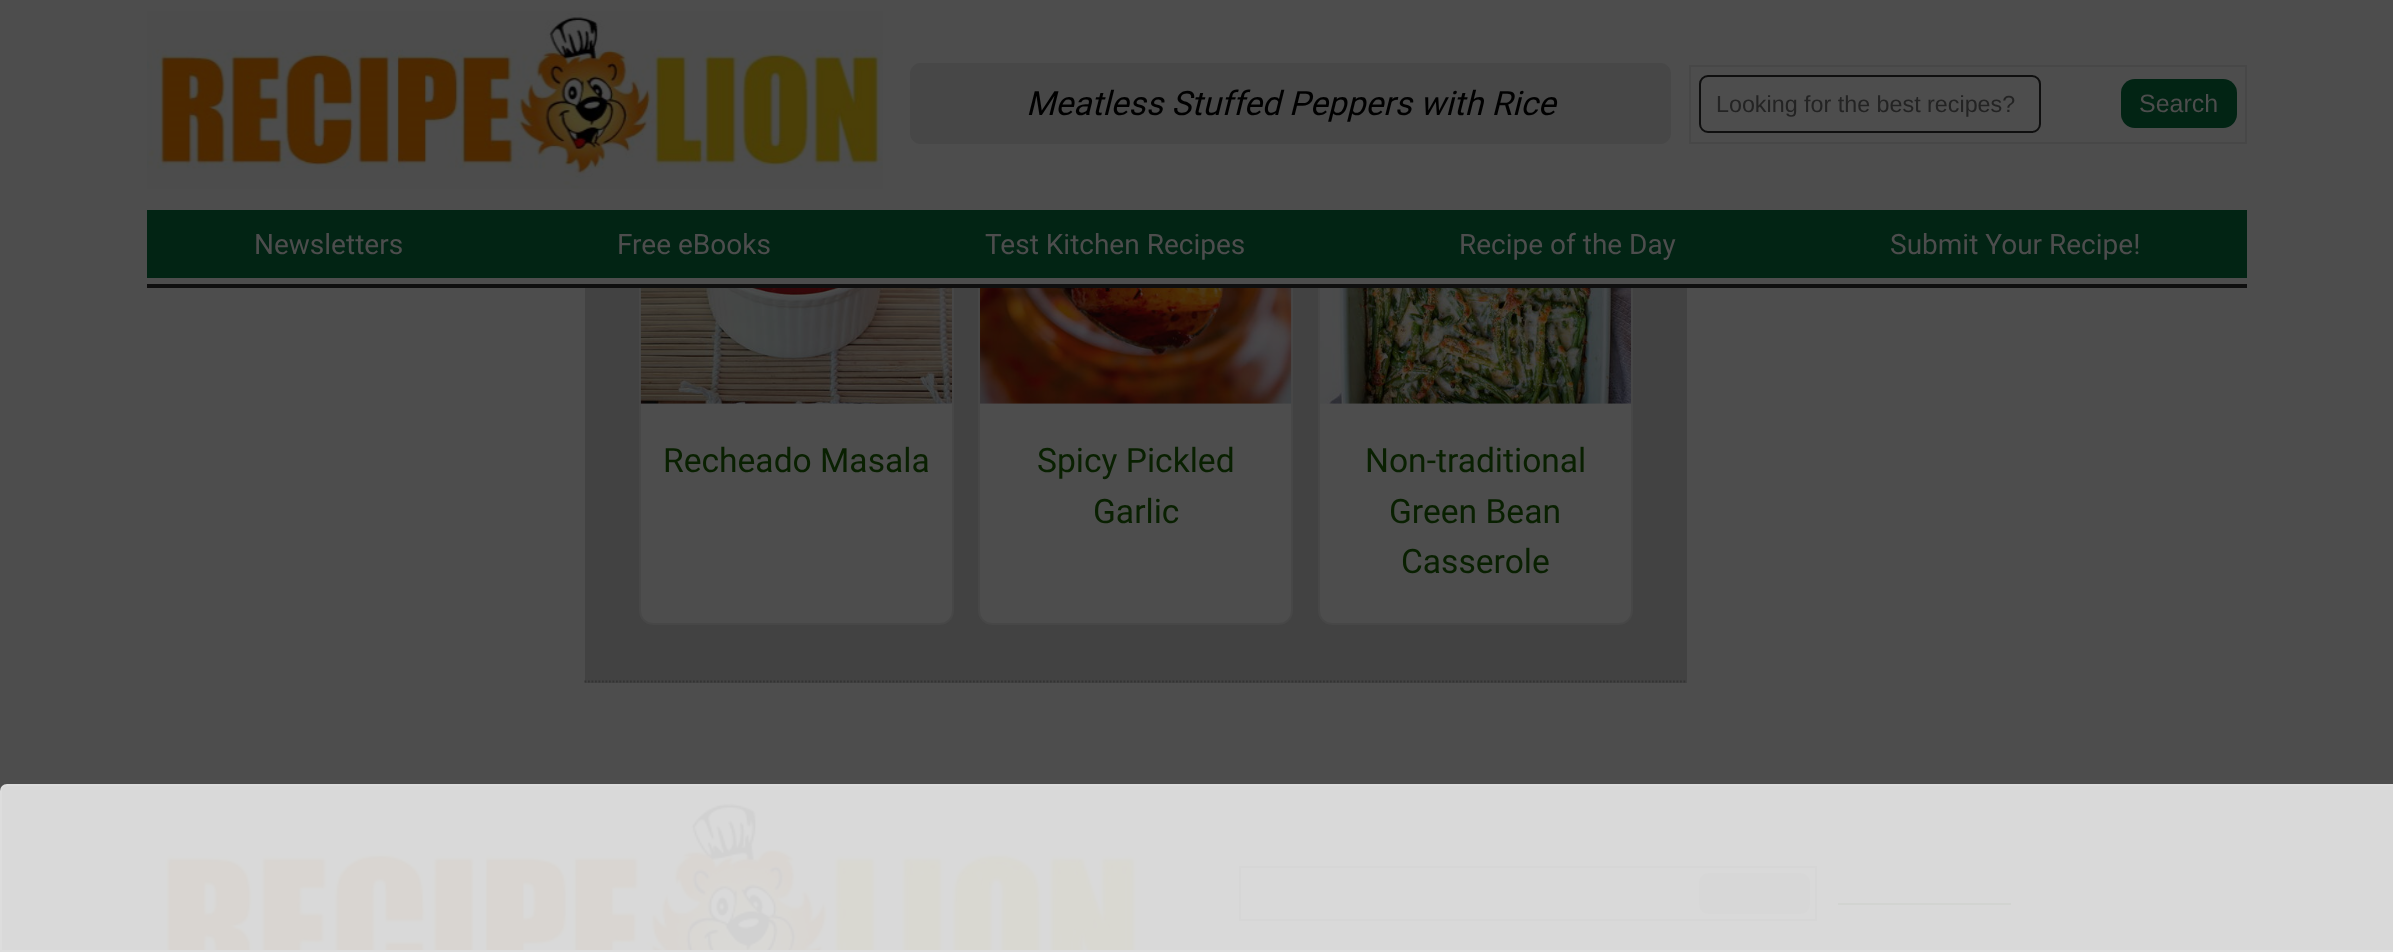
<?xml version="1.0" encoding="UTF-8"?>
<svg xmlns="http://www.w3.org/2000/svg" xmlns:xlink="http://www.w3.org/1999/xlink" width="2393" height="952">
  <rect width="100%" height="100%" fill="#4d4d4d" />
  <rect x="585" y="288" width="1102" height="395" fill="#424242" />
  <rect x="640" y="90" width="313" height="534" rx="13" fill="#4d4d4d" stroke="#474747" stroke-width="2" />
  <rect x="979" y="90" width="313" height="534" rx="13" fill="#4d4d4d" stroke="#474747" stroke-width="2" />
  <rect x="1319" y="90" width="313" height="534" rx="13" fill="#4d4d4d" stroke="#474747" stroke-width="2" />
  <rect x="639" y="89" width="994" height="195" fill="#4d4d4d" />
  <rect x="147" y="284" width="2100" height="4" fill="#0f0f0f" />
  <image x="147" y="11" width="736" height="178" xlink:href="image1.png" />
  <rect x="910" y="63" width="761" height="81" rx="11" fill="#474747" />
  <rect x="1690" y="66" width="556" height="77" fill="none" stroke="#474747" stroke-width="2" />
  <rect x="1700" y="76" width="340" height="56" rx="8" fill="none" stroke="#0f0f0f" stroke-width="2" />
  <rect x="2121" y="79" width="116" height="49" rx="14" fill="#022414" />
  <rect x="147" y="210" width="2100" height="68" fill="#022414" />
  <path d="M 584.5 681.5 h 1102.5" fill="none" stroke="#333333" stroke-width="1.8" stroke-dasharray="1.75 1.75" />
  <image x="640" y="288" width="312" height="116" xlink:href="image2.png" />
  <image x="980" y="288" width="312" height="116" xlink:href="image3.png" />
  <image x="1320" y="288" width="311" height="116" xlink:href="image4.png" />
  <image x="147" y="796" width="995" height="154" xlink:href="image5.png" />
  <rect x="1240" y="867" width="576" height="53" fill="none" stroke="#333333" stroke-width="2" />
  <rect x="1699" y="873" width="111" height="41" rx="9" fill="#3d3d3d" />
  <rect x="1838" y="903" width="173" height="2" fill="#092001" />
  <path d="M 7 785 h 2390 v 166 h -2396 v -160 c 0 -3.5 2.5 -6 6 -6 z" fill="#ebebeb" fill-opacity="0.89" stroke="#dddddd" stroke-width="2" />
  <text x="1026" y="115" style="font-family: Roboto; font-size: 33.6px; font-style: italic; fill: #000000">Meatless Stuffed Peppers with Rice</text>
  <text x="1716" y="112" style="font-family: Liberation Sans; font-size: 23.3px; fill: #232323">Looking for the best recipes?</text>
  <text x="2139" y="112" style="font-family: Liberation Sans; font-size: 25px; fill: #4d4d4d">Search</text>
  <text x="254" y="254" style="font-family: Roboto; font-size: 28px; fill: #4d4d4d">Newsletters</text>
  <text x="617" y="254" style="font-family: Roboto; font-size: 28px; fill: #4d4d4d">Free eBooks</text>
  <text x="985" y="254" style="font-family: Roboto; font-size: 28px; fill: #4d4d4d">Test Kitchen Recipes</text>
  <text x="1459" y="254" style="font-family: Roboto; font-size: 28px; fill: #4d4d4d">Recipe of the Day</text>
  <text x="1890" y="254" style="font-family: Roboto; font-size: 28px; fill: #4d4d4d">Submit Your Recipe!</text>
  <text x="663" y="472" style="font-family: Roboto; font-size: 33.6px; fill: #092001">Recheado Masala</text>
  <text x="1037" y="472" style="font-family: Roboto; font-size: 33.6px; fill: #092001">Spicy Pickled</text>
  <text x="1093" y="523" style="font-family: Roboto; font-size: 33.6px; fill: #092001">Garlic</text>
  <text x="1365" y="472" style="font-family: Roboto; font-size: 33.6px; fill: #092001">Non-traditional</text>
  <text x="1389" y="523" style="font-family: Roboto; font-size: 33.6px; fill: #092001">Green Bean</text>
  <text x="1401" y="573" style="font-family: Roboto; font-size: 33.6px; fill: #092001">Casserole</text>
</svg>
